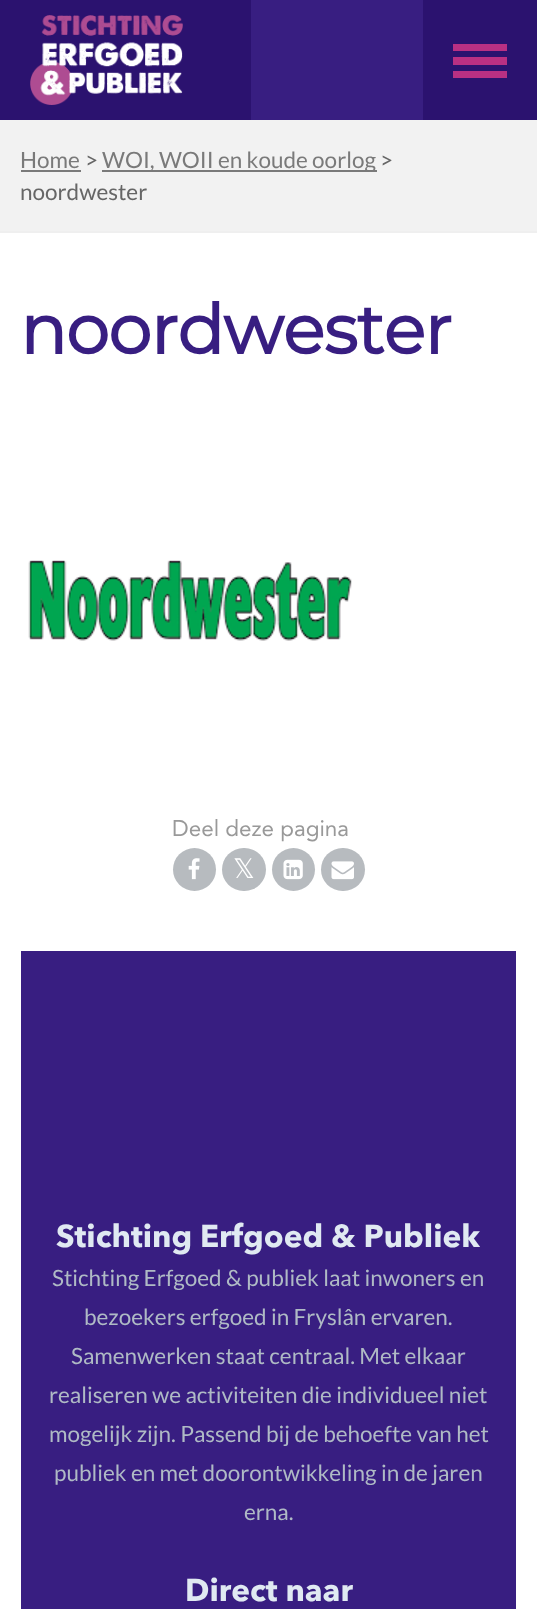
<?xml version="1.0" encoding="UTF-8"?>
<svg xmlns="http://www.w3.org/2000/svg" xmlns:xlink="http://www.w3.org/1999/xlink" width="537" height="1609">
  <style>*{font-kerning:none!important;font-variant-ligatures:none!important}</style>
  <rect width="100%" height="100%" fill="#ffffff" />
  <rect x="251" width="172" height="120" fill="#381e81" />
  <rect width="251" height="120" fill="#2b126f" />
  <image x="30" y="15" width="153" height="90" xlink:href="image1.png" />
  <rect x="423" width="114" height="120" fill="#2b126f" />
  <rect x="453" y="57" width="54" height="8" fill="#b93083" />
  <rect x="453" y="44" width="54" height="7" fill="#b93083" />
  <rect x="453" y="71" width="54" height="7" fill="#b93083" />
  <rect y="120" width="537" height="111" fill="#f2f2f2" />
  <rect y="231" width="537" height="2" fill="#efefef" />
  <rect x="21" y="170" width="60" height="2" fill="#7a7a7a" />
  <rect x="102" y="170" width="275" height="2" fill="#7a7a7a" />
  <image x="28" y="560" width="324" height="81" xlink:href="image2.png" />
  <circle cx="194.5" cy="869.5" r="21.5" fill="#b7bbbf" />
  <image x="188" y="858" width="12" height="22" xlink:href="image3.png" />
  <rect x="222" y="848" width="44" height="43" rx="21.5" fill="#b7bbbf" />
  <circle cx="293.5" cy="869.5" r="21.5" fill="#b7bbbf" />
  <image x="283" y="859" width="20" height="21" xlink:href="image4.png" />
  <rect x="321" y="848" width="44" height="43" rx="21.5" fill="#b7bbbf" />
  <image x="331" y="861" width="23" height="19" xlink:href="image5.png" />
  <rect x="21" y="951" width="495" height="658" fill="#381e81" />
  <text x="20" y="168" style="font-family: Lato; font-size: 22.5px; fill: #7a7a7a">Home</text>
  <text x="85" y="168" style="font-family: Lato; font-size: 22.5px; fill: #666666">&gt;</text>
  <text x="102" y="168" style="font-family: Lato; font-size: 22.5px; fill: #7a7a7a">WOI, WOII en koude oorlog</text>
  <text x="380" y="168" style="font-family: Lato; font-size: 22.5px; fill: #666666">&gt;</text>
  <text x="20" y="200" style="font-family: Lato; font-size: 22.5px; fill: #666666">noordwester</text>
  <text x="20" y="354" style="font-family: Montserrat; font-size: 69px; font-weight: bold; letter-spacing: -0.9px; fill: #381e81">noordwester</text>
  <text x="172" y="836" style="font-family: Avenir; font-size: 22.5px; fill: #999999">Deel deze pagina</text>
  <text x="233" y="878" style="font-family: DejaVu Sans; font-size: 27px; fill: #ffffff">𝕏</text>
  <text x="56" y="1247" style="font-family: Avenir Next; font-size: 31.5px; font-weight: bold; fill: #e0e9f2">Stichting Erfgoed &amp; Publiek</text>
  <text x="52" y="1286" style="font-family: Lato; font-size: 22.5px; fill: #afbac5">Stichting Erfgoed &amp; publiek laat inwoners en</text>
  <text x="84" y="1325" style="font-family: Lato; font-size: 22.5px; fill: #afbac5">bezoekers erfgoed in Fryslân ervaren.</text>
  <text x="71" y="1364" style="font-family: Lato; font-size: 22.5px; fill: #afbac5">Samenwerken staat centraal. Met elkaar</text>
  <text x="49" y="1403" style="font-family: Lato; font-size: 22.5px; fill: #afbac5">realiseren we activiteiten die individueel niet</text>
  <text x="49" y="1442" style="font-family: Lato; font-size: 22.5px; fill: #afbac5">mogelijk zijn. Passend bij de behoefte van het</text>
  <text x="54" y="1481" style="font-family: Lato; font-size: 22.5px; fill: #afbac5">publiek en met doorontwikkeling in de jaren</text>
  <text x="244" y="1520" style="font-family: Lato; font-size: 22.5px; fill: #afbac5">erna.</text>
  <text x="185" y="1601" style="font-family: Avenir Next; font-size: 31.5px; font-weight: bold; fill: #e0e9f2">Direct naar</text>
</svg>
